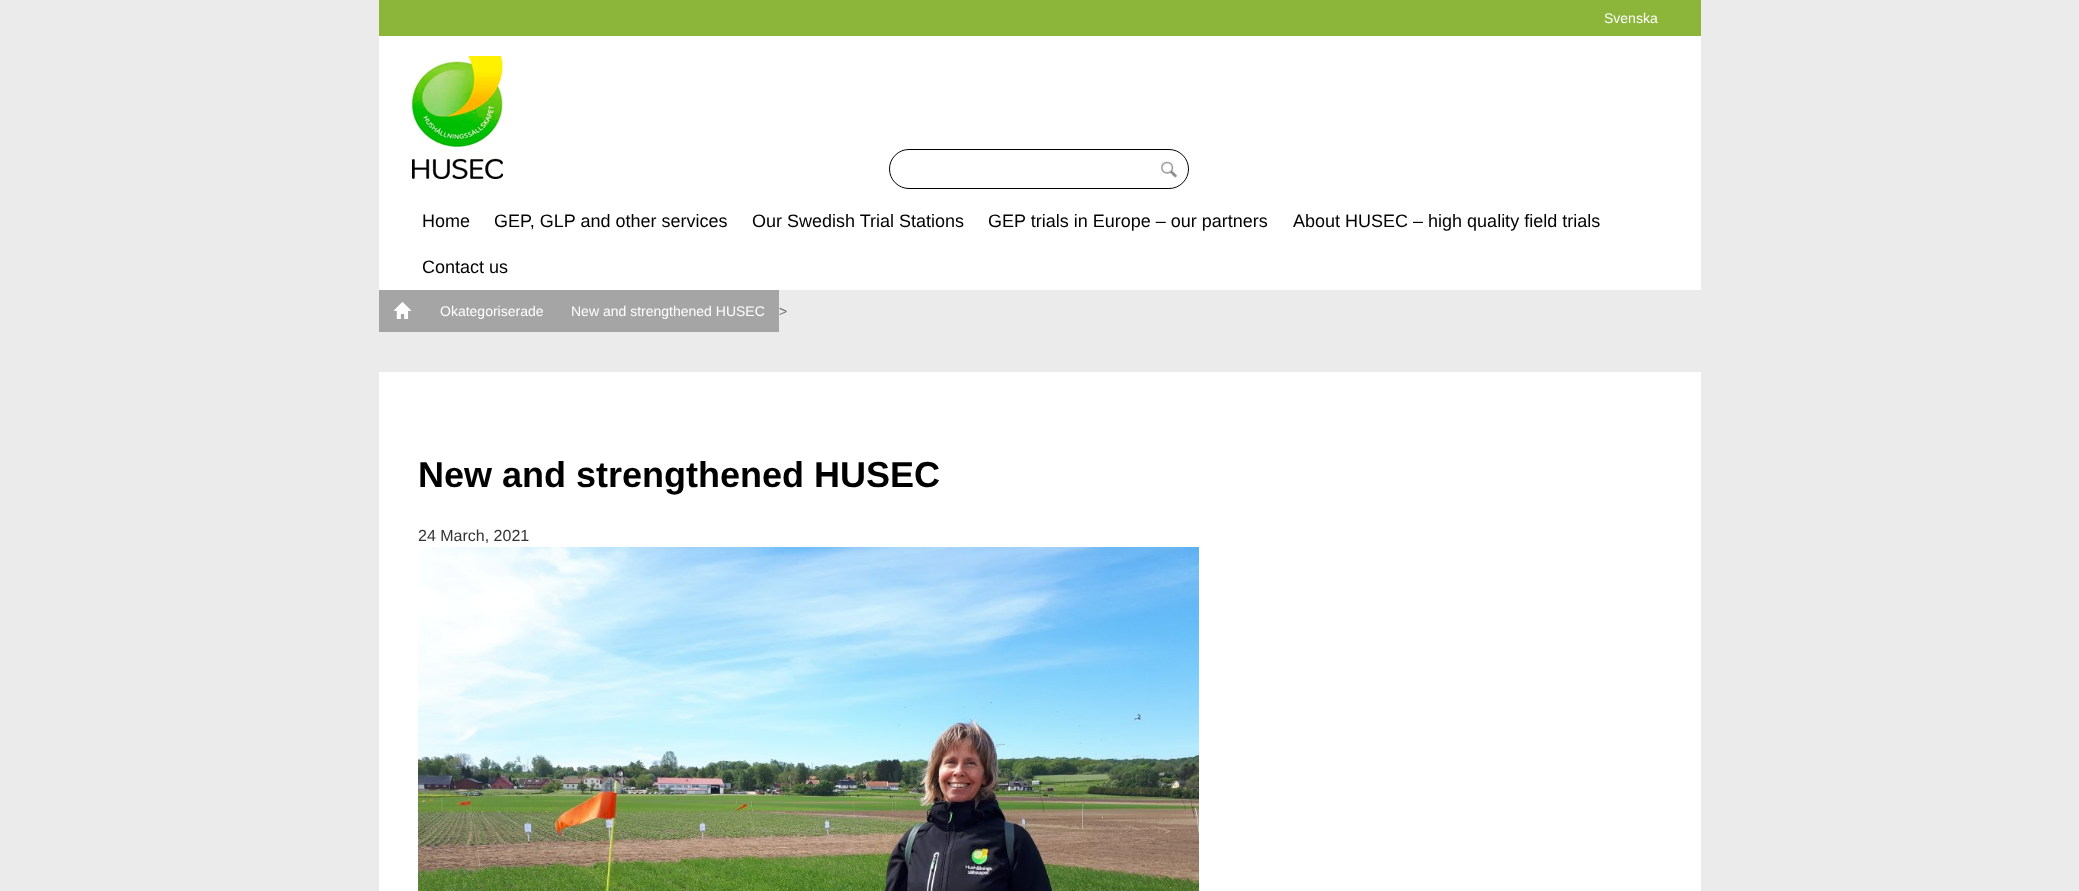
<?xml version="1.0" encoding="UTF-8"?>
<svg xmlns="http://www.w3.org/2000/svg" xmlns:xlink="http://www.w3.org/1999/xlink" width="2079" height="891">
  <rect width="100%" height="100%" fill="#ebebeb" />
  <rect x="379" width="1322" height="36" fill="#8bb639" />
  <rect x="379" y="36" width="1322" height="254" fill="#ffffff" />
  <image x="412" y="56" width="91" height="123" xlink:href="image1.png" />
  <image x="1160" y="161" width="18" height="17" xlink:href="image2.png" />
  <rect x="889.5" y="149.5" width="299" height="39" rx="19.5" fill="none" stroke="#000000" />
  <rect x="379" y="290" width="400" height="42" fill="#a5a5a5" />
  <image x="393" y="302" width="19" height="17" xlink:href="image3.png" />
  <rect x="379" y="372" width="1322" height="519" fill="#ffffff" />
  <image x="418" y="547" width="781" height="344" xlink:href="image4.png" />
  <text x="1604" y="23" style="font-family: Liberation Sans; font-size: 14px; fill: #ffffff">Svenska</text>
  <text x="422" y="227" style="font-family: Liberation Sans; font-size: 18px; fill: #000000">Home</text>
  <text x="494" y="227" style="font-family: Liberation Sans; font-size: 18px; fill: #000000">GEP, GLP and other services</text>
  <text x="752" y="227" style="font-family: Liberation Sans; font-size: 18px; fill: #000000">Our Swedish Trial Stations</text>
  <text x="988" y="227" style="font-family: Liberation Sans; font-size: 18px; fill: #000000">GEP trials in Europe – our partners</text>
  <text x="1293" y="227" style="font-family: Liberation Sans; font-size: 18px; fill: #000000">About HUSEC – high quality field trials</text>
  <text x="422" y="273" style="font-family: Liberation Sans; font-size: 18px; fill: #000000">Contact us</text>
  <text x="440" y="316" style="font-family: Liberation Sans; font-size: 14px; fill: #ffffff">Okategoriserade</text>
  <text x="571" y="316" style="font-family: Liberation Sans; font-size: 14px; fill: #ffffff">New and strengthened HUSEC</text>
  <text x="779" y="316" style="font-family: Liberation Sans; font-size: 14px; fill: #666666">&gt;</text>
  <text x="418" y="487" style="font-family: Liberation Sans; font-size: 36px; font-weight: bold; fill: #000000">New and strengthened HUSEC</text>
  <text x="418" y="541" style="font-family: Liberation Sans; font-size: 16px; fill: #333333">24 March, 2021</text>
</svg>
